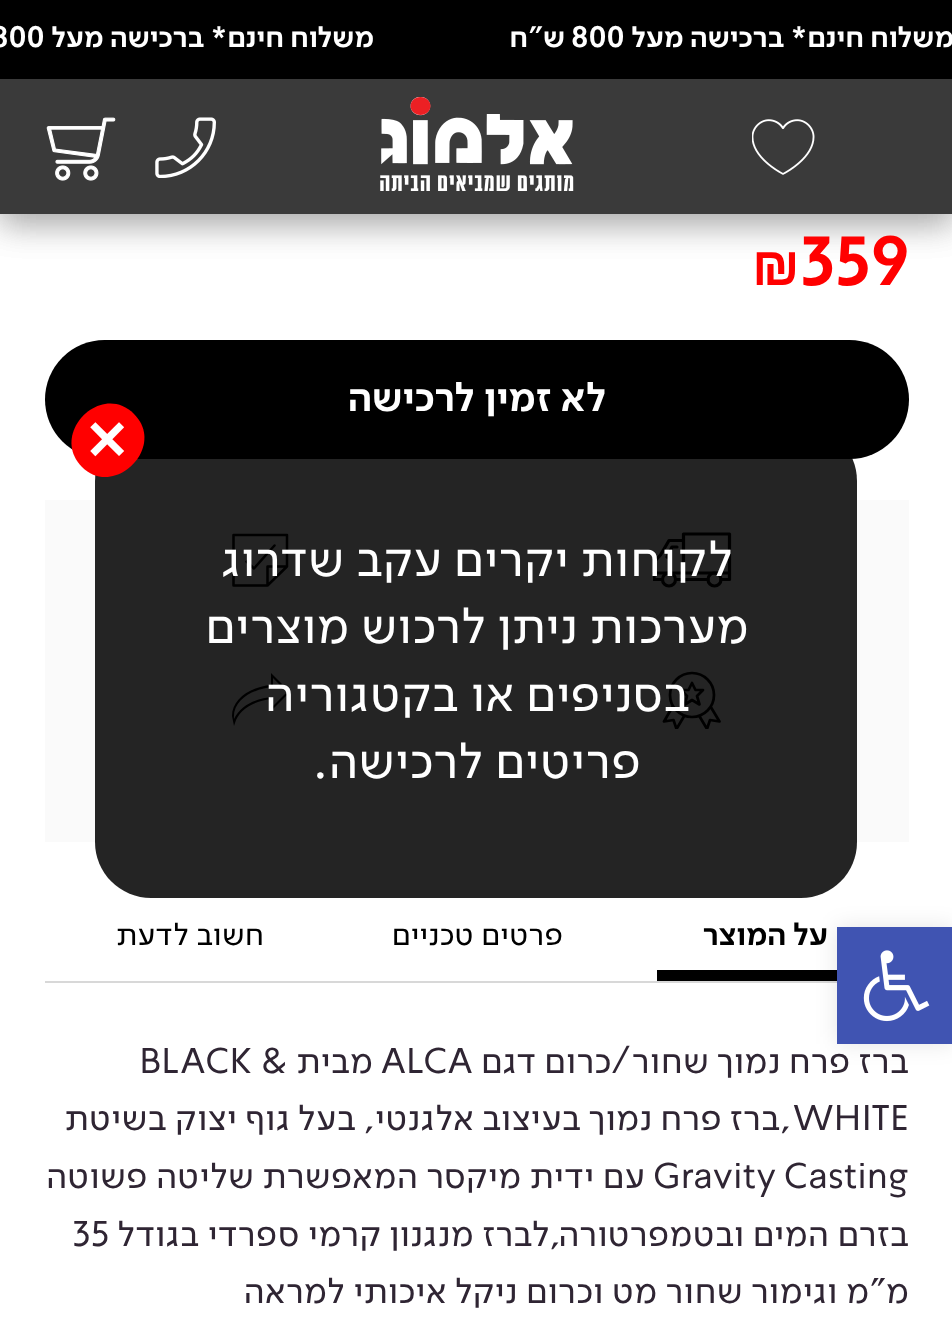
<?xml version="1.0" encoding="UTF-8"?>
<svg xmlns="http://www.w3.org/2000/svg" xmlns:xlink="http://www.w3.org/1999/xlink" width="952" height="1323">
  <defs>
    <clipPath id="clip1"><rect x="653" y="531" width="81" height="59" /></clipPath>
    <clipPath id="clip2"><rect x="662" y="671" width="63" height="58" /></clipPath>
  </defs>
  <rect width="100%" height="100%" fill="#ffffff" />
  <rect y="9" width="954" height="214" fill="#000000" fill-opacity="0.2" filter="blur(17px)" />
  <rect width="952" height="79" fill="#000000" />
  <rect y="88" width="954" height="135" fill="#000000" fill-opacity="0.2" filter="blur(17px)" />
  <rect y="79" width="952" height="135" fill="#3a3a3a" />
  <image x="380" y="97" width="194" height="94" xlink:href="image1.png" />
  <image x="752" y="119" width="63" height="56" xlink:href="image2.png" />
  <image x="155" y="117" width="61" height="61" xlink:href="image3.png" />
  <image x="46" y="117" width="70" height="64" xlink:href="image4.png" />
  <rect x="45" y="340" width="864" height="119" rx="59.5" fill="#000000" />
  <rect x="45" y="500" width="864" height="342" fill="#fafafa" />
  <circle cx="669" cy="579.5" r="6.5" fill="none" stroke="#000000" stroke-width="3.2" />
  <circle cx="714.5" cy="579.5" r="6.5" fill="none" stroke="#000000" stroke-width="3.2" />
  <g clip-path="url(#clip1)">
    <path d="M 662.5 579.5 h -8.5 v -17.5 l 6.5 -7 l 8.5 -14.5 h 14.5 v -6.5 h 46 v 45.5 h -8.5" fill="none" stroke="#000000" stroke-width="3.2" stroke-linecap="round" stroke-linejoin="round" />
  </g>
  <path d="M 675.5 579.5 h 32.5 m -31 -32.5 h -5 l -5 10 m 16.5 -16.5 v 32.5" fill="none" stroke="#000000" stroke-width="3.2" stroke-linecap="round" stroke-linejoin="round" />
  <path d="M 654 573 h 75.5" fill="none" stroke="#000000" stroke-width="3.2" stroke-linecap="round" stroke-linejoin="round" />
  <path d="M 267.5 566.5 v 19 h -34 v -50.5 h 53.5 v 31.5 z m 19.5 0 l -19.5 19" fill="none" stroke="#000000" stroke-width="2.5" stroke-linejoin="round" />
  <path d="M 274.5 545.5 l -20.5 23 l -7.5 -7" fill="none" stroke="#000000" stroke-width="2.5" stroke-linecap="round" stroke-linejoin="round" />
  <g clip-path="url(#clip2)">
    <path d="M 673 706 l -9 15.5 l 9.5 -1.5 l 3 9 l 8 -13.5 m 26 -9 l 9 15 l -9.5 -1.5 l -3 9 l -8 -13.5" fill="none" stroke="#000000" stroke-width="2.7" stroke-linejoin="round" />
  </g>
  <circle cx="692" cy="695" r="22" fill="none" stroke="#000000" stroke-width="2.7" />
  <path d="M 692 683 l 3.5 7 h 7.5 l -6 6 l 2.5 8.5 l -7.5 -4.5 l -7 4.5 l 2 -8.5 l -6 -6 h 7.5 z" fill="none" stroke="#000000" stroke-width="2.7" stroke-linejoin="round" />
  <path d="M 234 726 l -2 -10 c 0 -16 17 -29 39 -31 v -12 l 19 19 l -19 19 v -12 c -18 2 -33 12 -36 24 z m 39 -48 v 9 c -16 1 -41 11 -39 32 c 7 -15 24 -21 39 -22 v 9 l 14 -14 z" fill="#010002" />
  <rect x="45" y="981" width="792" height="2" fill="#d8d8d8" />
  <rect x="657" y="970" width="180" height="11" fill="#000000" />
  <rect x="837" y="927" width="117" height="117" fill="#000000" fill-opacity="0.1" filter="blur(11px)" />
  <rect x="95" y="425" width="762" height="473" rx="56" fill="#000000" fill-opacity="0.86" />
  <path d="M 134 414 c 33 33 -20 85 -52 53 c -33 -33 19 -86 52 -53 z" fill="#ff0000" />
  <rect x="837" y="927" width="115" height="117" fill="#4054b2" />
  <image x="863" y="950" width="67" height="72" xlink:href="image5.png" />
  <text x="954" y="47" style="font-family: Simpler; font-size: 29.25px; direction: rtl; fill: #ffffff">משלוח חינם* ברכישה מעל</text>
  <text x="571" y="47" style="font-family: Simpler; font-size: 29.25px; fill: #ffffff">800</text>
  <text x="565" y="47" style="font-family: Simpler; font-size: 29.25px; direction: rtl; fill: #ffffff">ש"ח</text>
  <text x="374" y="47" style="font-family: Simpler; font-size: 29.25px; direction: rtl; fill: #ffffff">משלוח חינם* ברכישה מעל</text>
  <text x="-9" y="47" style="font-family: Simpler; font-size: 29.25px; fill: #ffffff">800</text>
  <text x="800" y="285" style="font-family: Simpler; font-size: 68px; fill: #ff0000">359</text>
  <text x="752" y="285" style="font-family: Liberation Sans; font-size: 54px; font-weight: bold; fill: #ff0000">₪</text>
  <text x="606" y="411" style="font-family: Simpler; font-size: 40.5px; direction: rtl; fill: #ffffff">לא זמין לרכישה</text>
  <text x="828" y="945" style="font-family: Simpler; font-size: 31.5px; direction: rtl; fill: #000000">על המוצר</text>
  <text x="563" y="945" style="font-family: 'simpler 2'; font-size: 31.5px; direction: rtl; fill: #000000">פרטים טכניים</text>
  <text x="264" y="945" style="font-family: 'simpler 2'; font-size: 31.5px; direction: rtl; fill: #000000">חשוב לדעת</text>
  <text x="909" y="1073" style="font-family: 'simpler 2'; font-size: 36px; direction: rtl; fill: #2f2533">ברז פרח נמוך שחור/כרום דגם</text>
  <text x="381" y="1073" style="font-family: 'simpler 2'; font-size: 36px; fill: #2f2533">ALCA</text>
  <text x="373" y="1073" style="font-family: 'simpler 2'; font-size: 36px; direction: rtl; fill: #2f2533">מבית</text>
  <text x="139" y="1073" style="font-family: 'simpler 2'; font-size: 36px; fill: #2f2533">BLACK &amp;</text>
  <text x="793" y="1130" style="font-family: 'simpler 2'; font-size: 36px; fill: #2f2533">WHITE</text>
  <text x="793" y="1130" word-spacing="-0.25" style="font-family: 'simpler 2'; font-size: 36px; direction: rtl; fill: #2f2533">,ברז פרח נמוך בעיצוב אלגנטי, בעל גוף יצוק בשיטת</text>
  <text x="653" y="1188" style="font-family: 'simpler 2'; font-size: 36px; fill: #2f2533">Gravity Casting</text>
  <text x="645" y="1188" style="font-family: 'simpler 2'; font-size: 36px; direction: rtl; fill: #2f2533">עם ידית מיקסר המאפשרת שליטה פשוטה</text>
  <text x="909" y="1246" style="font-family: 'simpler 2'; font-size: 36px; direction: rtl; fill: #2f2533">בזרם המים ובטמפרטורה,לברז מנגנון קרמי ספרדי בגודל</text>
  <text x="72" y="1246" style="font-family: 'simpler 2'; font-size: 36px; fill: #2f2533">35</text>
  <text x="909" y="1303" style="font-family: 'simpler 2'; font-size: 36px; direction: rtl; fill: #2f2533">מ"מ וגימור שחור מט וכרום ניקל איכותי למראה</text>
  <text x="71" y="437" transform="rotate(45 71 437)" style="font-family: Simpler; font-size: 68px; fill: #ffffff">+</text>
  <text x="733" y="576" style="font-family: 'simpler 2'; font-size: 50.4px; direction: rtl; fill: #ffffff">לקוחות יקרים עקב שדרוג</text>
  <text x="749" y="643" style="font-family: 'simpler 2'; font-size: 50.4px; direction: rtl; fill: #ffffff">מערכות</text>
  <text x="578" y="643" style="font-family: 'simpler 2'; font-size: 50.4px; direction: rtl; fill: #ffffff">ניתן לרכוש מוצרים</text>
  <text x="690" y="711" style="font-family: 'simpler 2'; font-size: 50.4px; direction: rtl; fill: #ffffff">בסניפים או בקטגוריה</text>
  <text x="641" y="778" style="font-family: 'simpler 2'; font-size: 50.4px; direction: rtl; fill: #ffffff">פריטים לרכישה.</text>
</svg>
